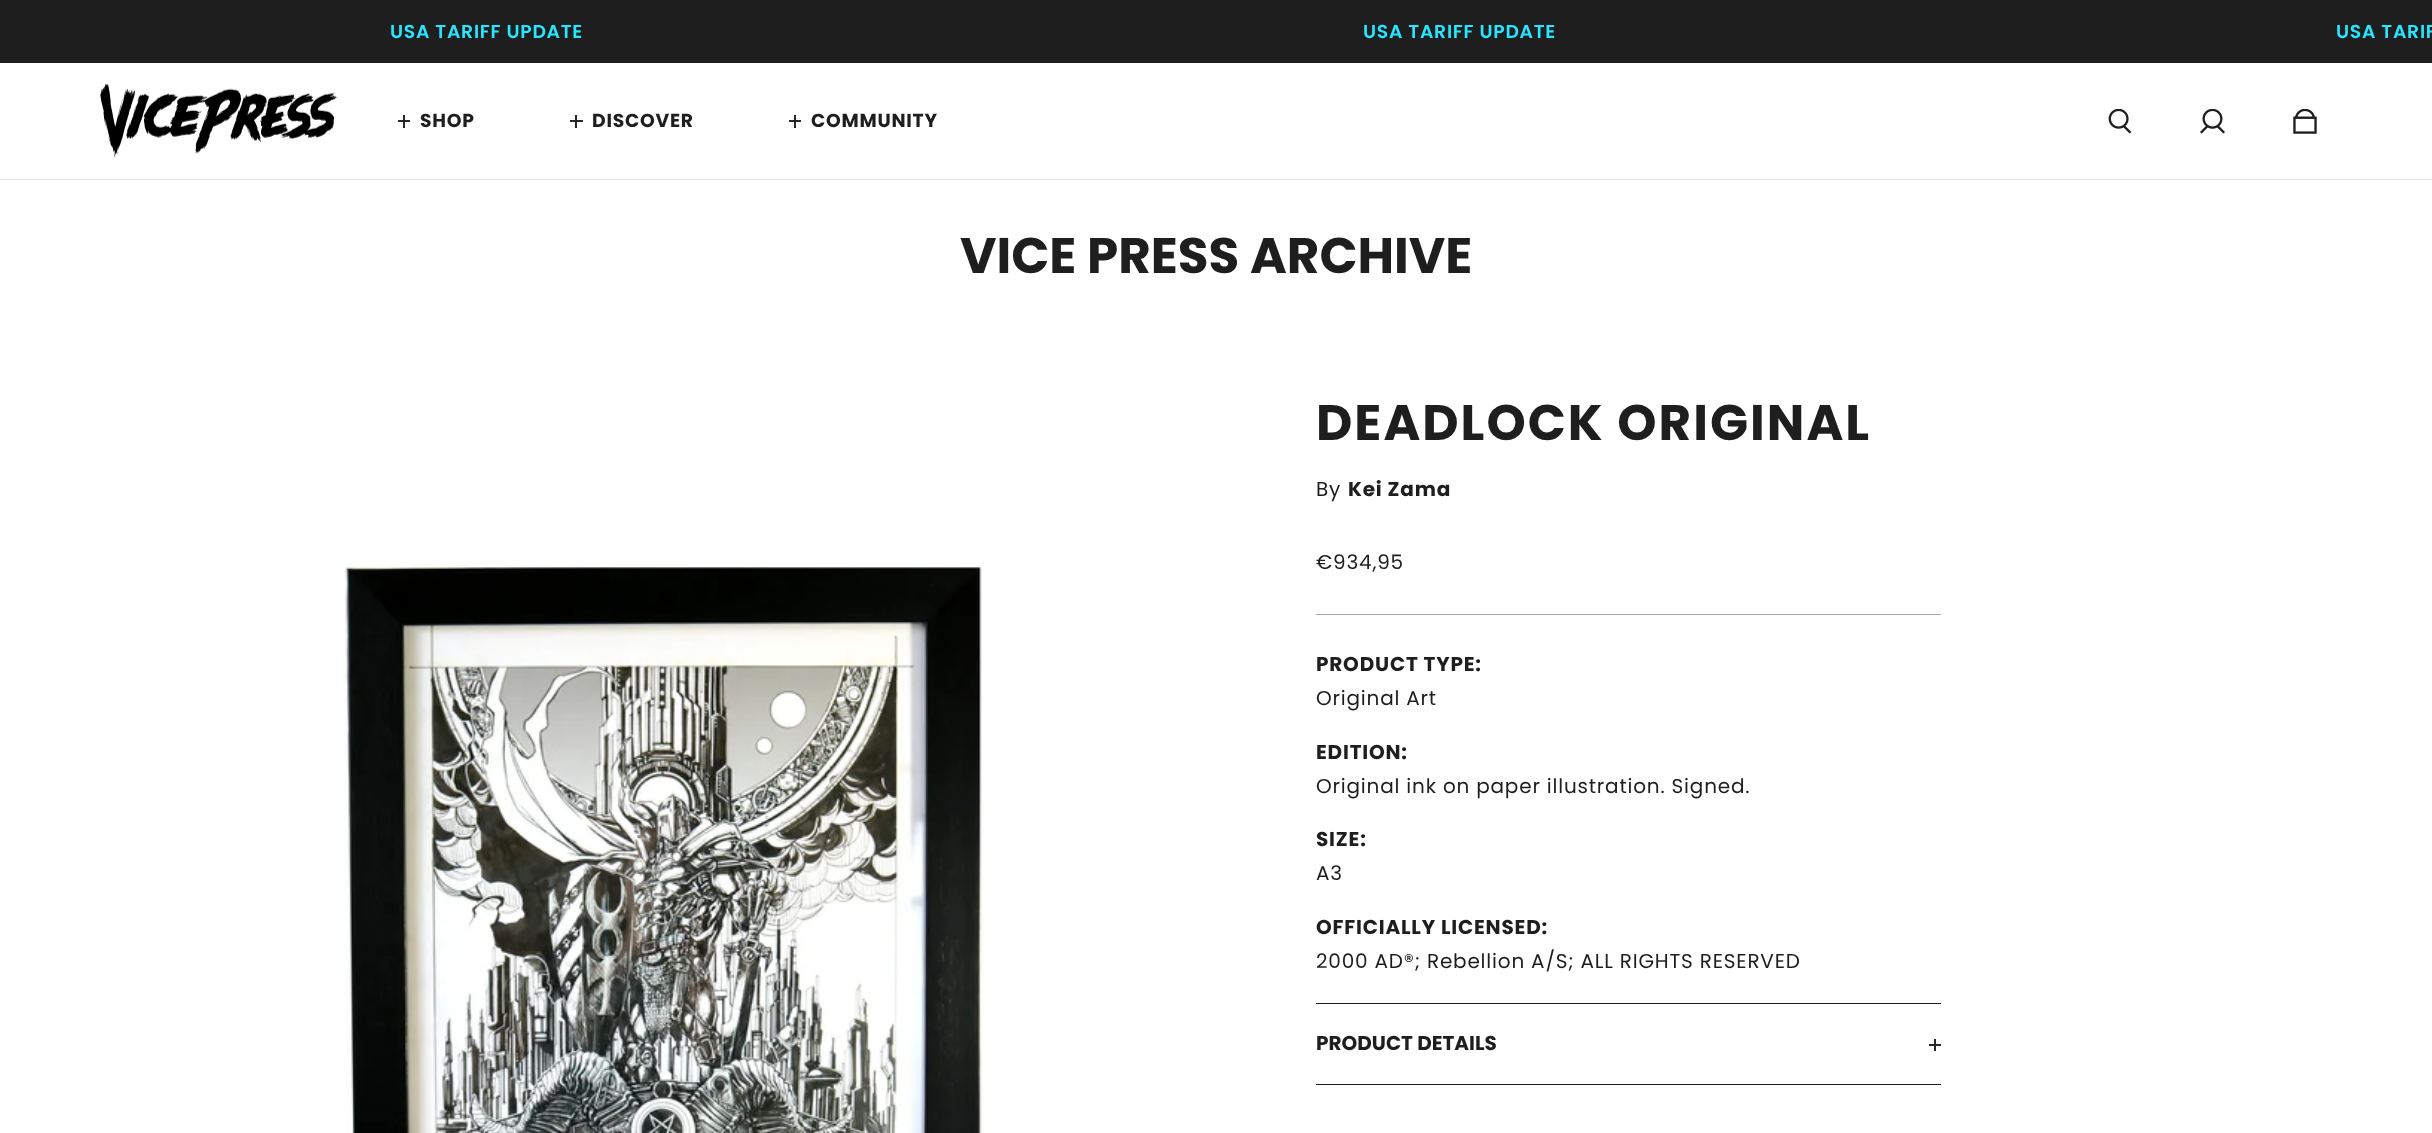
<?xml version="1.0" encoding="UTF-8"?>
<svg xmlns="http://www.w3.org/2000/svg" xmlns:xlink="http://www.w3.org/1999/xlink" width="2432" height="1133">
  <rect width="100%" height="100%" fill="#1e1e1e" />
  <rect y="63" width="2432" height="116" fill="#ffffff" />
  <rect x="789" y="120" width="12" height="2" fill="#292929" />
  <rect x="570" y="120" width="13" height="2" fill="#292929" />
  <rect x="398" y="120" width="12" height="2" fill="#292929" />
  <rect y="179" width="2432" height="1" fill="#e9e9e9" />
  <image x="100" y="83" width="238" height="75" xlink:href="image1.png" />
  <rect x="403" y="115" width="2" height="13" fill="#292929" />
  <rect x="403" y="120" width="2" height="2" fill="#1f1f1f" />
  <rect x="575" y="115" width="2" height="13" fill="#292929" />
  <rect x="575" y="120" width="2" height="2" fill="#1f1f1f" />
  <rect x="794" y="115" width="2" height="13" fill="#292929" />
  <rect x="794" y="120" width="2" height="2" fill="#1f1f1f" />
  <image x="2108" y="109" width="24" height="25" xlink:href="image2.png" />
  <image x="2200" y="109" width="25" height="25" xlink:href="image3.png" />
  <image x="2293" y="109" width="24" height="25" xlink:href="image4.png" />
  <rect y="180" width="2432" height="953" fill="#ffffff" />
  <rect x="1929" y="1044" width="12" height="2" fill="#292929" />
  <image x="344" y="564" width="639" height="569" xlink:href="image5.png" />
  <rect x="1316" y="614" width="625" height="1" fill="#a5a5a5" />
  <rect x="1316" y="1003" width="625" height="1" fill="#1e1e1e" />
  <rect x="1316" y="1084" width="625" height="1" fill="#1e1e1e" />
  <rect x="1934" y="1039" width="2" height="12" fill="#292929" />
  <rect x="1934" y="1044" width="2" height="2" fill="#1f1f1f" />
  <text x="390" y="38" style="font-family: Poppins; font-size: 18.75px; font-weight: 600; letter-spacing: 0.75px; fill: #28e6ff">USA TARIFF UPDATE</text>
  <text x="1363" y="38" style="font-family: Poppins; font-size: 18.75px; font-weight: 600; letter-spacing: 0.75px; fill: #28e6ff">USA TARIFF UPDATE</text>
  <text x="2336" y="38" style="font-family: Poppins; font-size: 18.75px; font-weight: 600; letter-spacing: 0.75px; fill: #28e6ff">USA TARIF</text>
  <text x="420" y="127" style="font-family: Poppins; font-size: 18.75px; font-weight: bold; letter-spacing: 0.75px; fill: #1e1e1e">SHOP</text>
  <text x="592" y="127" style="font-family: Poppins; font-size: 18.75px; font-weight: bold; letter-spacing: 0.75px; fill: #1e1e1e">DISCOVER</text>
  <text x="811" y="127" style="font-family: Poppins; font-size: 18.75px; font-weight: bold; letter-spacing: 0.75px; fill: #1e1e1e">COMMUNITY</text>
  <text x="960" y="273" style="font-family: Poppins; font-size: 50px; font-weight: bold; fill: #1e1e1e">VICE PRESS ARCHIVE</text>
  <text x="1316" y="440" style="font-family: Poppins; font-size: 50px; font-weight: bold; letter-spacing: 2px; fill: #1e1e1e">DEADLOCK ORIGINAL</text>
  <text x="1316" y="496" style="font-family: Poppins; font-size: 20px; letter-spacing: 0.8px; fill: #1e1e1e">By</text>
  <text x="1348" y="496" style="font-family: Poppins; font-size: 20px; font-weight: bold; letter-spacing: 0.8px; fill: #1e1e1e">Kei Zama</text>
  <text x="1316" y="569" style="font-family: Poppins; font-size: 20px; letter-spacing: 0.8px; fill: #1e1e1e">€934,95</text>
  <text x="1316" y="671" style="font-family: Poppins; font-size: 20px; font-weight: bold; letter-spacing: 0.8px; fill: #1e1e1e">PRODUCT TYPE:</text>
  <text x="1316" y="705" style="font-family: Poppins; font-size: 20px; letter-spacing: 0.8px; fill: #1e1e1e">Original Art</text>
  <text x="1316" y="759" style="font-family: Poppins; font-size: 20px; font-weight: bold; letter-spacing: 0.8px; fill: #1e1e1e">EDITION:</text>
  <text x="1316" y="793" style="font-family: Poppins; font-size: 20px; letter-spacing: 0.8px; fill: #1e1e1e">Original ink on paper illustration. Signed.</text>
  <text x="1316" y="846" style="font-family: Poppins; font-size: 20px; font-weight: bold; letter-spacing: 0.8px; fill: #1e1e1e">SIZE:</text>
  <text x="1316" y="880" style="font-family: Poppins; font-size: 20px; letter-spacing: 0.8px; fill: #1e1e1e">A3</text>
  <text x="1316" y="934" style="font-family: Poppins; font-size: 20px; font-weight: bold; letter-spacing: 0.8px; fill: #1e1e1e">OFFICIALLY LICENSED:</text>
  <text x="1316" y="968" style="font-family: Poppins; font-size: 20px; letter-spacing: 0.8px; fill: #1e1e1e">2000 AD®; Rebellion A/S; ALL RIGHTS RESERVED</text>
  <text x="1316" y="1050" style="font-family: Poppins; font-size: 20px; font-weight: bold; fill: #1e1e1e">PRODUCT DETAILS</text>
</svg>
